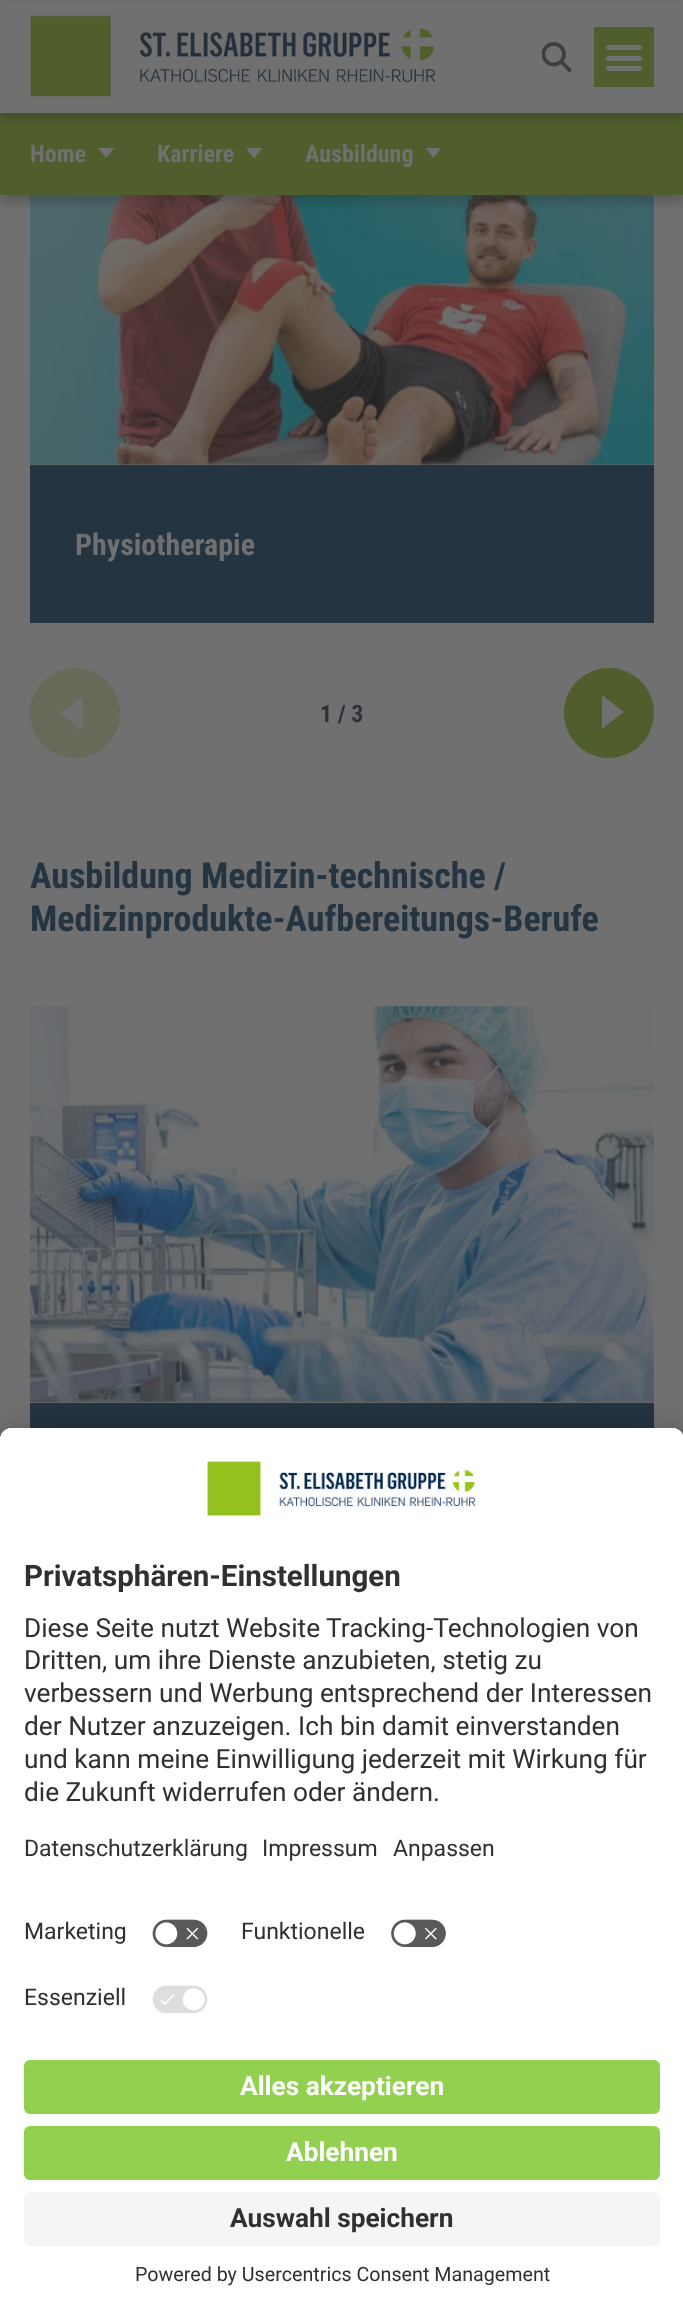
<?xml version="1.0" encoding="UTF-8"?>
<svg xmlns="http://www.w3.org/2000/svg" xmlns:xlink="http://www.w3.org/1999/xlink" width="683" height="2310">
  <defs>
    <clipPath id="clip1"><rect x="602" y="695" width="22" height="36" /></clipPath>
  </defs>
  <rect width="100%" height="100%" fill="#707070" />
  <rect x="30" y="195" width="624" height="270" fill="#656565" />
  <rect x="30" y="465" width="624" height="158" fill="#243441" />
  <image x="30" y="195" width="624" height="271" xlink:href="image3.png" />
  <rect y="120" width="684" height="83" fill="#242424" fill-opacity="0.25" filter="blur(4px)" />
  <rect y="113" width="683" height="82" fill="#505e2d" />
  <rect y="8" width="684" height="112" fill="#242424" fill-opacity="0.25" filter="blur(4px)" />
  <rect y="4" width="683" height="109" fill="#707070" />
  <image x="30" y="15" width="406" height="82" xlink:href="image1.png" />
  <image x="542" y="42" width="30" height="30" xlink:href="image2.png" />
  <rect x="594" y="27" width="60" height="60" fill="#505e2d" />
  <rect x="606" y="45" width="36" height="5" rx="2.5" fill="#707070" />
  <rect x="606" y="56" width="36" height="5" rx="2.5" fill="#707070" />
  <rect x="606" y="66" width="36" height="5" rx="2.5" fill="#707070" />
  <path d="M 106 158 l 8.5 -10 h -16.5 z" fill="#707070" />
  <path d="M 254 158.5 l 8.5 -10.5 h -16.5 z" fill="#707070" />
  <path d="M 433.5 158 l 7.5 -10 h -15.5 z" fill="#707070" />
  <circle cx="75" cy="713" r="45" fill="#656a59" />
  <path d="M 60.5 713.5 l 22 -17.5 v 35 z" fill="#707070" />
  <circle cx="609" cy="713" r="45" fill="#505e2d" />
  <g clip-path="url(#clip1)">
    <path d="M 623.5 712 l -22 17.5 v -35 z" fill="#707070" />
  </g>
  <rect x="30" y="1403" width="624" height="25" fill="#243441" />
  <rect x="30" y="1007" width="624" height="396" fill="#656565" />
  <image x="30" y="1006" width="624" height="396" xlink:href="image4.png" />
  <rect y="1458" width="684" height="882" rx="12" fill="#000000" fill-opacity="0.3" filter="blur(21px)" />
  <rect y="1436" width="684" height="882" rx="12" fill="#000000" fill-opacity="0.22" filter="blur(19.5px)" />
  <path d="M 12 1428 h 660 c 6.5 0 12 5.5 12 12 v 870 h -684 v -870 c 0 -6.5 5.5 -12 12 -12 z" fill="#ffffff" />
  <path d="M 12 1428 h 660 c 6.5 0 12 5.5 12 12 v 602 h -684 v -602 c 0 -6.5 5.5 -12 12 -12 z" fill="#ffffff" />
  <path d="M 12 1428 h 660 c 6.5 0 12 5.5 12 12 v 470 h -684 v -470 c 0 -6.5 5.5 -12 12 -12 z" fill="#ffffff" />
  <image x="207" y="1461" width="269" height="56" xlink:href="image5.png" />
  <image x="152" y="1919" width="56" height="29" xlink:href="image6.png" />
  <image x="391" y="1919" width="55" height="29" xlink:href="image7.png" />
  <image x="152" y="1985" width="56" height="28" xlink:href="image8.png" />
  <rect x="24" y="2060" width="636" height="54" rx="6" fill="#92d050" />
  <rect x="24" y="2126" width="636" height="54" rx="6" fill="#92d050" />
  <rect x="24" y="2192" width="636" height="54" rx="6" fill="#f5f5f5" />
  <text x="30" y="162" style="font-family: Roboto Condensed; font-size: 24px; font-weight: bold; fill: #707070">Home</text>
  <text x="157" y="162" style="font-family: Roboto Condensed; font-size: 24px; font-weight: bold; fill: #707070">Karriere</text>
  <text x="305" y="162" style="font-family: Roboto Condensed; font-size: 24px; font-weight: bold; fill: #707070">Ausbildung</text>
  <text x="75" y="555" style="font-family: Roboto Condensed; font-size: 30px; font-weight: bold; fill: #707070">Physiotherapie</text>
  <text x="320" y="722" style="font-family: Roboto Condensed; font-size: 24px; font-weight: bold; fill: #2a323c">1 / 3</text>
  <text x="30" y="888" style="font-family: Roboto Condensed; font-size: 36px; font-weight: bold; fill: #243441">Ausbildung Medizin-technische /</text>
  <text x="30" y="931" style="font-family: Roboto Condensed; font-size: 36px; font-weight: bold; fill: #243441">Medizinprodukte-Aufbereitungs-Berufe</text>
  <text x="24" y="1586" style="font-family: Roboto; font-size: 29.5px; font-weight: bold; fill: #303030">Privatsphären-Einstellungen</text>
  <text x="24" y="1637" style="font-family: Roboto; font-size: 26.25px; fill: #303030">Diese Seite nutzt Website Tracking-Technologien von</text>
  <text x="24" y="1669" style="font-family: Roboto; font-size: 26.25px; fill: #303030">Dritten, um ihre Dienste anzubieten, stetig zu</text>
  <text x="24" y="1702" style="font-family: Roboto; font-size: 26.25px; fill: #303030">verbessern und Werbung entsprechend der Interessen</text>
  <text x="24" y="1735" style="font-family: Roboto; font-size: 26.25px; fill: #303030">der Nutzer anzuzeigen. Ich bin damit einverstanden</text>
  <text x="24" y="1768" style="font-family: Roboto; font-size: 26.25px; fill: #303030">und kann meine Einwilligung jederzeit mit Wirkung für</text>
  <text x="24" y="1801" style="font-family: Roboto; font-size: 26.25px; fill: #303030">die Zukunft widerrufen oder ändern.</text>
  <text x="24" y="1856" style="font-family: Roboto; font-size: 23px; fill: #303030">Datenschutzerklärung</text>
  <text x="262" y="1856" style="font-family: Roboto; font-size: 23px; fill: #303030">Impressum</text>
  <text x="393" y="1856" style="font-family: Roboto; font-size: 23px; fill: #303030">Anpassen</text>
  <text x="24" y="1939" style="font-family: Roboto; font-size: 23px; fill: #303030">Marketing</text>
  <text x="241" y="1939" style="font-family: Roboto; font-size: 23px; fill: #303030">Funktionelle</text>
  <text x="24" y="2005" style="font-family: Roboto; font-size: 23px; fill: #303030">Essenziell</text>
  <text x="240" y="2095" style="font-family: Roboto; font-size: 26.25px; font-weight: bold; fill: #ffffff">Alles akzeptieren</text>
  <text x="286" y="2161" style="font-family: Roboto; font-size: 26.25px; font-weight: bold; fill: #ffffff">Ablehnen</text>
  <text x="230" y="2227" style="font-family: Roboto; font-size: 26.25px; font-weight: bold; fill: #303030">Auswahl speichern</text>
  <text x="135" y="2281" style="font-family: Roboto; font-size: 19.7px; fill: #303030">Powered by Usercentrics Consent Management</text>
</svg>
